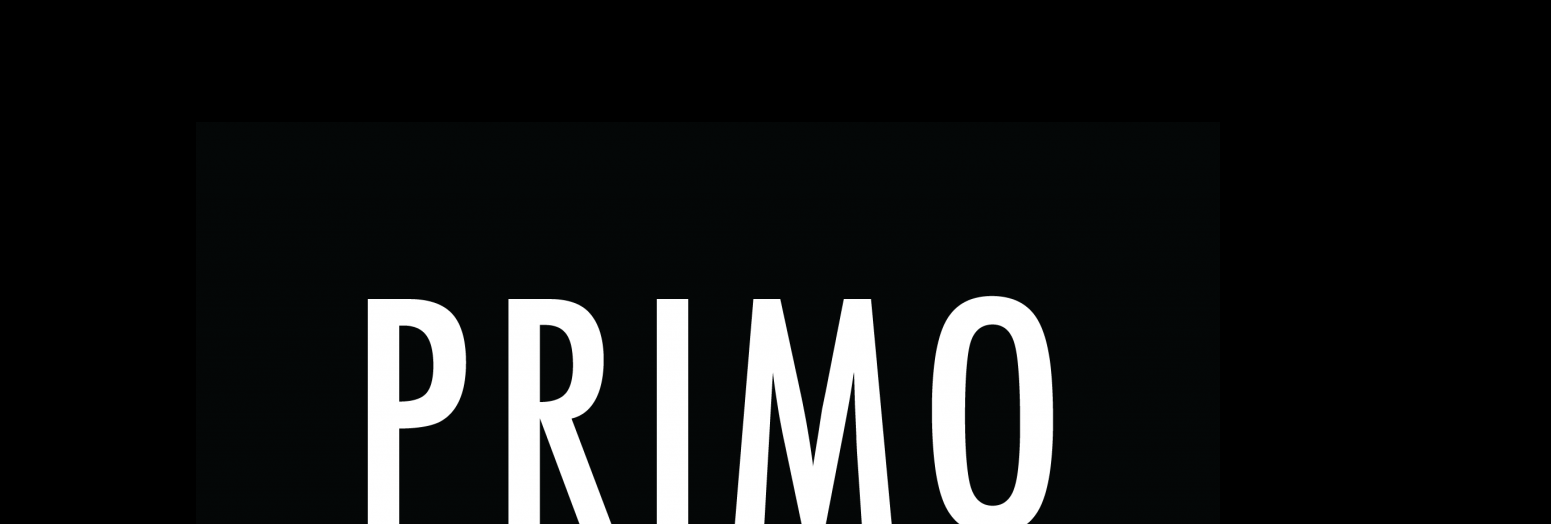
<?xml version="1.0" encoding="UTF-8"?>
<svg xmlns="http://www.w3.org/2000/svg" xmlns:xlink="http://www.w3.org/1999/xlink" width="1551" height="524">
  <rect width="100%" height="100%" fill="#000000" />
  <image x="196" y="122" width="1024" height="402" xlink:href="image1.png" />
</svg>
